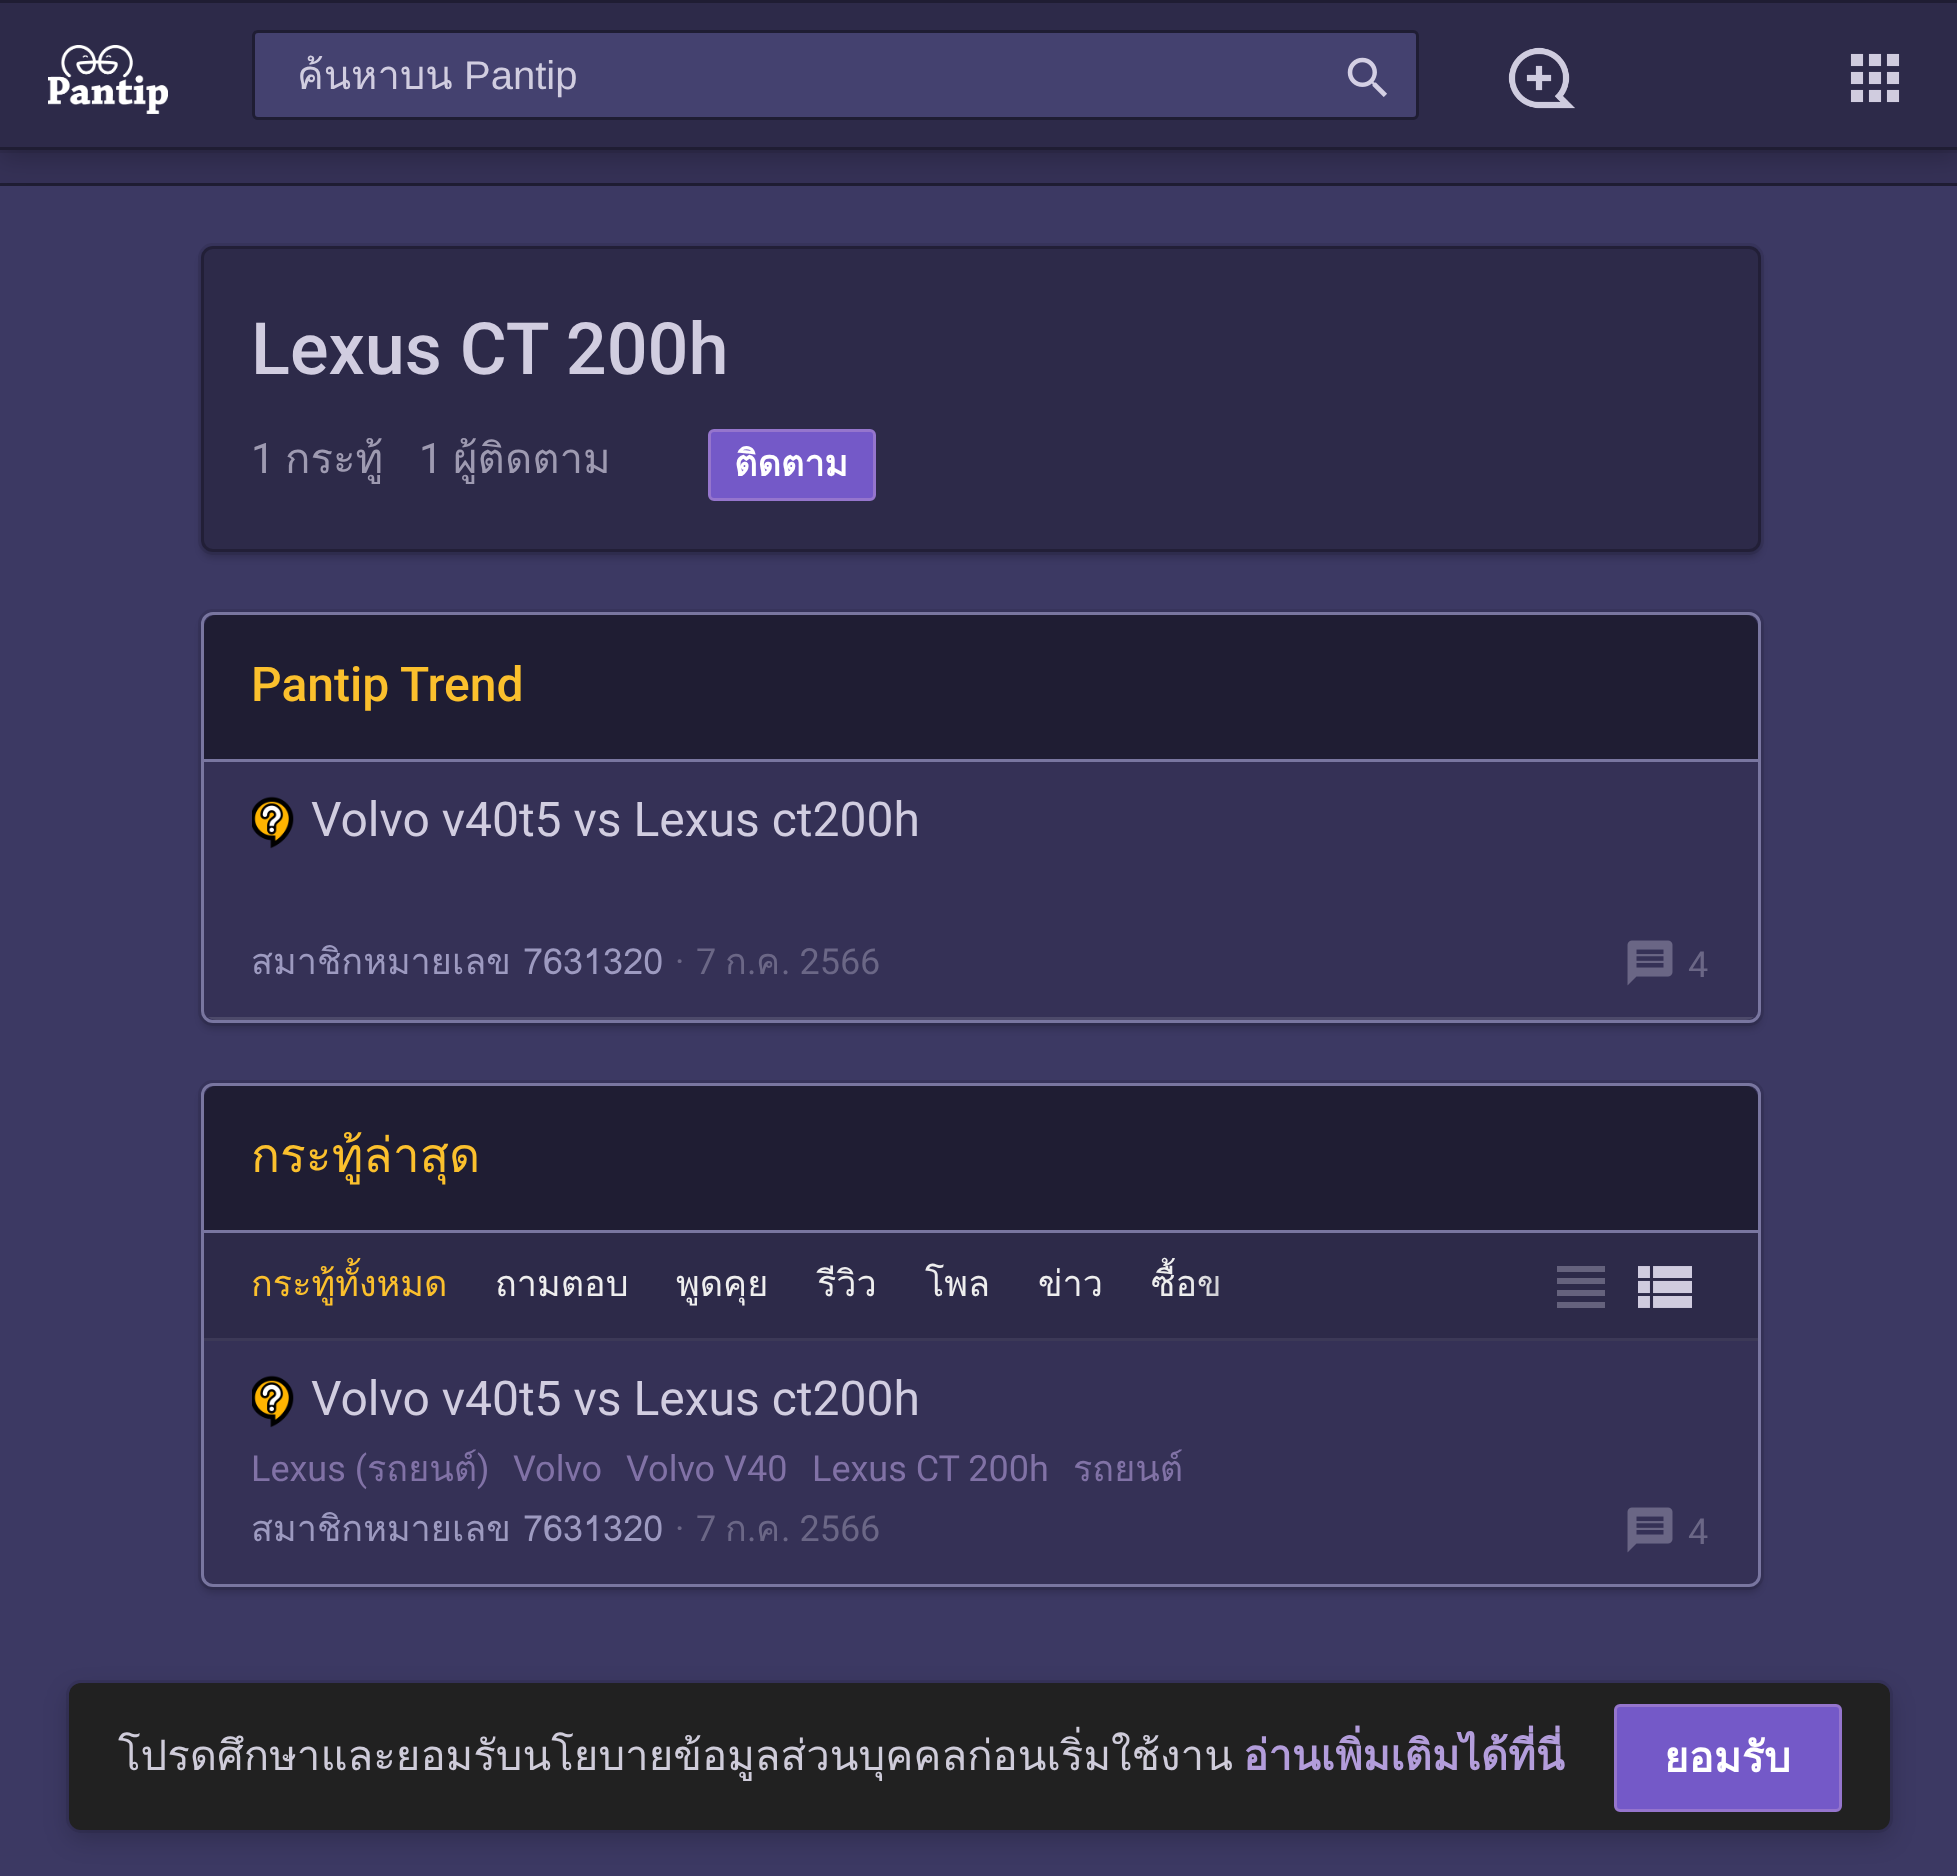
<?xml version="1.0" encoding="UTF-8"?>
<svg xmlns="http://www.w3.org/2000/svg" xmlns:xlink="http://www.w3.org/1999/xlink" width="1957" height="1876">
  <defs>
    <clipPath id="clip1"><path d="M 204 762 h 1554 v 246 c 0 6.5 -5.5 12 -12 12 h -1530 c -6.5 0 -12 -5.5 -12 -12 z" /></clipPath>
    <linearGradient id="g1" gradientUnits="userSpaceOnUse" x1="1185" y1="1286" x2="1725" y2="1286"><stop offset="0" stop-color="#2d2a49" stop-opacity="0" /><stop offset="0.4" stop-color="#2d2a49" /></linearGradient>
  </defs>
  <rect width="100%" height="100%" fill="#3c3963" />
  <rect x="-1.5" y="-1.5" width="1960" height="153" fill="none" stroke="#312d4f" stroke-width="3" />
  <rect y="153" width="1957" height="30" fill="#353156" />
  <rect y="183" width="1957" height="3" fill="#1f1d33" />
  <rect y="9" width="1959" height="150" fill="#000000" fill-opacity="0.2" filter="blur(12px)" />
  <rect y="3" width="1957" height="144" fill="#2d2a49" />
  <rect width="1957" height="3" fill="#1f1d33" />
  <rect y="147" width="1957" height="3" fill="#1f1d33" />
  <image x="48" y="45" width="120" height="69" xlink:href="image1.png" />
  <rect x="253.5" y="31.5" width="1164" height="87" rx="4.5" fill="#44416f" stroke="#1f1d33" stroke-width="3" />
  <image x="1347" y="57" width="40" height="40" xlink:href="image2.png" />
  <image x="1508" y="47" width="67" height="62" xlink:href="image3.png" />
  <image x="1850" y="53" width="50" height="50" xlink:href="image4.png" />
  <rect x="199.5" y="244.5" width="1563" height="309" rx="13.5" fill="none" stroke="#37345b" stroke-width="3" />
  <rect x="201" y="252" width="1560" height="306" rx="12" fill="#000000" fill-opacity="0.16" filter="blur(3px)" />
  <rect x="201" y="246" width="1560" height="306" rx="12" fill="#2d2a49" />
  <rect x="202.5" y="247.5" width="1557" height="303" rx="10.5" fill="none" stroke="#000000" stroke-opacity="0.24" stroke-width="3" />
  <rect x="709.5" y="430.5" width="165" height="69" rx="4.5" fill="#7459c8" stroke="#9575cd" stroke-width="3" />
  <rect x="199.5" y="610.5" width="1563" height="414" rx="13.5" fill="none" stroke="#37345b" stroke-width="3" />
  <rect x="201" y="618" width="1560" height="411" rx="12" fill="#000000" fill-opacity="0.16" filter="blur(3px)" />
  <rect x="202.5" y="613.5" width="1557" height="408" rx="10.5" fill="#353156" stroke="#7976a0" stroke-width="3" />
  <path d="M 216 615 h 1530 c 6.5 0 12 5.5 12 12 v 135 h -1554 v -135 c 0 -6.5 5.5 -12 12 -12 z" fill="#1f1d33" />
  <rect x="204" y="759" width="1554" height="3" fill="#7976a0" />
  <g clip-path="url(#clip1)">
    <rect x="204" y="1017" width="1554" height="3" fill="#4d4a6a" />
  </g>
  <image x="252" y="796" width="42" height="53" xlink:href="image5.png" />
  <image x="1627" y="940" width="46" height="46" xlink:href="image6.png" />
  <rect x="199.5" y="1081.5" width="1563" height="507" rx="13.5" fill="none" stroke="#37345b" stroke-width="3" />
  <rect x="201" y="1089" width="1560" height="504" rx="12" fill="#000000" fill-opacity="0.16" filter="blur(3px)" />
  <rect x="202.5" y="1084.5" width="1557" height="501" rx="10.5" fill="#353156" stroke="#7976a0" stroke-width="3" />
  <path d="M 216 1086 h 1530 c 6.5 0 12 5.5 12 12 v 135 h -1554 v -135 c 0 -6.5 5.5 -12 12 -12 z" fill="#1f1d33" />
  <rect x="204" y="1230" width="1554" height="3" fill="#7976a0" />
  <rect x="204" y="1233" width="1554" height="105" fill="#2d2a49" />
  <rect x="204" y="1338" width="1554" height="3" fill="#3c3957" />
  <path d="M 1557 1266 h 48 v 6 h -48 z m 0 18 v -6 h 48 v 6 z m 0 24 v -6 h 48 v 6 z m 0 -12 v -6 h 48 v 6 z" fill="#65627d" />
  <image x="1638" y="1266" width="54" height="42" xlink:href="image7.png" />
  <image x="252" y="1375" width="42" height="53" xlink:href="image5.png" />
  <image x="1627" y="1507" width="46" height="46" xlink:href="image6.png" />
  <rect x="67.5" y="1681.5" width="1824" height="150" rx="13.5" fill="none" stroke="#37345b" stroke-width="3" />
  <rect x="69" y="1692" width="1821" height="147" rx="12" fill="#000000" fill-opacity="0.2" filter="blur(12px)" />
  <rect x="69" y="1683" width="1821" height="147" rx="12" fill="#212121" />
  <rect x="1615.5" y="1705.5" width="225" height="105" rx="4.5" fill="#7459c8" stroke="#9575cd" stroke-width="3" />
  <text x="297" y="89" style="font-family: Loma; font-size: 40px; fill: #d1cde0">ค้นหาบน</text>
  <text x="464" y="89" style="font-family: Liberation Sans; font-size: 40px; fill: #d1cde0">Pantip</text>
  <text x="251" y="374" style="font-family: Roboto; font-size: 72px; font-weight: 500; fill: #d1cde0">Lexus CT 200h</text>
  <text x="251" y="473" style="font-family: Roboto; font-size: 42px; fill: #9e9ab1">1</text>
  <text x="285" y="473" style="font-family: Loma; font-size: 42px; fill: #9e9ab1">กระทู้</text>
  <text x="419" y="473" style="font-family: Roboto; font-size: 42px; fill: #9e9ab1">1</text>
  <text x="453" y="473" style="font-family: Loma; font-size: 42px; fill: #9e9ab1">ผู้ติดตาม</text>
  <text x="734" y="476" style="font-family: Loma; font-size: 36px; font-weight: bold; fill: #ffffff">ติดตาม</text>
  <text x="251" y="701" style="font-family: Roboto; font-size: 48px; font-weight: 500; fill: #fbc02d">Pantip Trend</text>
  <text x="311" y="836" style="font-family: Roboto; font-size: 48px; fill: #d1cde0">Volvo v40t5 vs Lexus ct200h</text>
  <text x="251" y="974" style="font-family: Loma; font-size: 36px; fill: #9d9ac0">สมาชิกหมายเลข 7631320</text>
  <text x="675" y="974" style="font-family: Roboto; font-size: 36px; fill: #6b6786">·</text>
  <text x="696" y="974" style="font-family: Roboto; font-size: 36px; fill: #6b6786">7</text>
  <text x="725" y="974" style="font-family: Loma; font-size: 36px; fill: #6b6786">ก</text>
  <text x="756" y="974" style="font-family: Loma; font-size: 36px; fill: #6b6786">ค</text>
  <text x="781" y="974" style="font-family: Roboto; font-size: 36px; fill: #6b6786">. 2566</text>
  <text x="747" y="974" style="font-family: Roboto; font-size: 36px; fill: #6b6786">.</text>
  <text x="1688" y="977" style="font-family: Roboto; font-size: 36px; fill: #6b6786">4</text>
  <text x="251" y="1172" style="font-family: Loma; font-size: 48px; fill: #fbc02d">กระทู้ล่าสุด</text>
  <text x="251" y="1296" style="font-family: Loma; font-size: 36px; fill: #fbc02d">กระทู้ทั้งหมด</text>
  <text x="495" y="1296" style="font-family: Loma; font-size: 36px; fill: #eeeeee">ถามตอบ</text>
  <text x="676" y="1296" style="font-family: Loma; font-size: 36px; fill: #eeeeee">พูดคุย</text>
  <text x="817" y="1296" style="font-family: Loma; font-size: 36px; fill: #eeeeee">รีวิว</text>
  <text x="925" y="1296" style="font-family: Loma; font-size: 36px; fill: #eeeeee">โพล</text>
  <text x="1038" y="1296" style="font-family: Loma; font-size: 36px; fill: #eeeeee">ข่าว</text>
  <text x="1151" y="1296" style="font-family: Loma; font-size: 36px; fill: #eeeeee">ซื้อข</text>
  <rect x="1190" y="1275" width="29" height="21" fill="url(#g1)" />
  <text x="311" y="1415" style="font-family: Roboto; font-size: 48px; fill: #d1cde0">Volvo v40t5 vs Lexus ct200h</text>
  <text x="251" y="1481" style="font-family: Roboto; font-size: 36px; fill: #8172a6">Lexus (</text>
  <text x="367" y="1481" style="font-family: Loma; font-size: 36px; fill: #8172a6">รถยนต์</text>
  <text x="477" y="1481" style="font-family: Roboto; font-size: 36px; fill: #8172a6">)</text>
  <text x="513" y="1481" style="font-family: Roboto; font-size: 36px; fill: #8172a6">Volvo</text>
  <text x="626" y="1481" style="font-family: Roboto; font-size: 36px; fill: #8172a6">Volvo V40</text>
  <text x="812" y="1481" style="font-family: Roboto; font-size: 36px; fill: #8172a6">Lexus CT 200h</text>
  <text x="1073" y="1481" style="font-family: Loma; font-size: 36px; fill: #8172a6">รถยนต์</text>
  <text x="251" y="1541" style="font-family: Loma; font-size: 36px; fill: #9d9ac0">สมาชิกหมายเลข 7631320</text>
  <text x="675" y="1541" style="font-family: Roboto; font-size: 36px; fill: #6b6786">·</text>
  <text x="696" y="1541" style="font-family: Roboto; font-size: 36px; fill: #6b6786">7</text>
  <text x="725" y="1541" style="font-family: Loma; font-size: 36px; fill: #6b6786">ก</text>
  <text x="756" y="1541" style="font-family: Loma; font-size: 36px; fill: #6b6786">ค</text>
  <text x="781" y="1541" style="font-family: Roboto; font-size: 36px; fill: #6b6786">. 2566</text>
  <text x="747" y="1541" style="font-family: Roboto; font-size: 36px; fill: #6b6786">.</text>
  <text x="1688" y="1544" style="font-family: Roboto; font-size: 36px; fill: #6b6786">4</text>
  <text x="118" y="1770" style="font-family: Loma; font-size: 42px; fill: #cfccda">โปรดศึกษาและยอมรับนโยบายข้อมูลส่วนบุคคลก่อนเริ่มใช้งาน</text>
  <text x="1243" y="1770" style="font-family: Loma; font-size: 42px; font-weight: bold; fill: #b39ddb">อ่านเพิ่มเติมได้ที่นี่</text>
  <text x="1664" y="1772" style="font-family: Loma; font-size: 42px; font-weight: bold; fill: #ffffff">ยอมรับ</text>
</svg>
